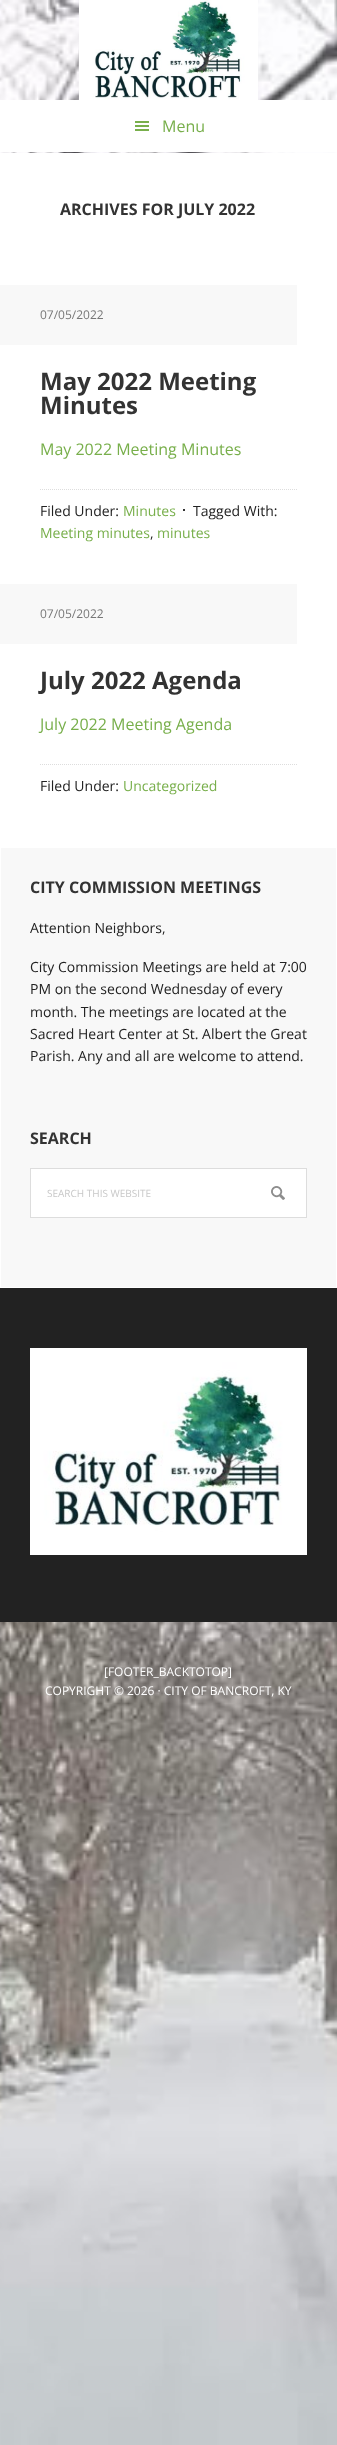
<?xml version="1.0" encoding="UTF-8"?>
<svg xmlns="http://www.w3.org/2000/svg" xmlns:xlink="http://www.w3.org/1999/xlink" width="337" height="2445">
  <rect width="100%" height="100%" fill="#ffffff" />
  <image x="0" y="0" width="337" height="2445" xlink:href="image1.png" />
  <image x="79" y="0" width="179" height="100" xlink:href="image2.png" />
  <rect y="100" width="337" height="52" fill="#ffffff" />
  <image x="135" y="121" width="14" height="10" xlink:href="image3.png" />
  <rect y="153" width="337" height="694" fill="#ffffff" />
  <rect y="285" width="297" height="60" fill="#f8f8f8" />
  <path d="M 40 489.5 h 257" fill="none" stroke="#dddddd" stroke-dasharray="1 1" />
  <rect x="183" y="509" width="2" height="2" fill="#333333" />
  <rect y="584" width="297" height="60" fill="#f8f8f8" />
  <path d="M 40 764.5 h 257" fill="none" stroke="#dddddd" stroke-dasharray="1 1" />
  <rect x="0.5" y="847.5" width="336" height="440" fill="#f8f8f8" stroke="#ffffff" />
  <rect x="31" y="1169" width="275" height="48" fill="#ffffff" />
  <image x="271" y="1186" width="14" height="14" xlink:href="image4.png" />
  <rect x="30.5" y="1168.5" width="276" height="49" fill="none" stroke="#dddddd" />
  <rect y="1288" width="337" height="334" fill="#222222" />
  <image x="30" y="1348" width="277" height="207" xlink:href="image5.png" />
  <text x="162" y="132" style="font-family: Open Sans; font-size: 16px; fill: #78af4b">Menu</text>
  <text x="60" y="215" style="font-family: Open Sans; font-size: 16px; font-weight: bold; fill: #333333">ARCHIVES FOR JULY 2022</text>
  <text x="40" y="319" style="font-family: Open Sans; font-size: 12px; fill: #777777">07/05/2022</text>
  <text x="40" y="390" style="font-family: Open Sans; font-size: 24px; font-weight: bold; fill: #333333">May 2022 Meeting</text>
  <text x="40" y="414" style="font-family: Open Sans; font-size: 24px; font-weight: bold; fill: #333333">Minutes</text>
  <text x="40" y="455" style="font-family: Open Sans; font-size: 16px; fill: #78af4b">May 2022 Meeting Minutes</text>
  <text x="40" y="516" style="font-family: Open Sans; font-size: 14px; fill: #222222">Filed Under:</text>
  <text x="123" y="516" style="font-family: Open Sans; font-size: 14px; fill: #78af4b">Minutes</text>
  <text x="193" y="516" style="font-family: Open Sans; font-size: 14px; fill: #222222">Tagged With:</text>
  <text x="40" y="538" style="font-family: Open Sans; font-size: 14px; fill: #78af4b">Meeting minutes</text>
  <text x="150" y="538" style="font-family: Open Sans; font-size: 14px; fill: #222222">,</text>
  <text x="157" y="538" style="font-family: Open Sans; font-size: 14px; fill: #78af4b">minutes</text>
  <text x="40" y="618" style="font-family: Open Sans; font-size: 12px; fill: #777777">07/05/2022</text>
  <text x="40" y="689" style="font-family: Open Sans; font-size: 24px; font-weight: bold; fill: #333333">July 2022 Agenda</text>
  <text x="40" y="730" style="font-family: Open Sans; font-size: 16px; fill: #78af4b">July 2022 Meeting Agenda</text>
  <text x="40" y="791" style="font-family: Open Sans; font-size: 14px; fill: #222222">Filed Under:</text>
  <text x="123" y="791" style="font-family: Open Sans; font-size: 14px; fill: #78af4b">Uncategorized</text>
  <text x="30" y="893" style="font-family: Open Sans; font-size: 16px; font-weight: bold; fill: #333333">CITY COMMISSION MEETINGS</text>
  <text x="30" y="933" style="font-family: Open Sans; font-size: 14px; fill: #222222">Attention Neighbors,</text>
  <text x="30" y="972" style="font-family: Open Sans; font-size: 14px; fill: #222222">City Commission Meetings are held at 7:00</text>
  <text x="30" y="994" style="font-family: Open Sans; font-size: 14px; fill: #222222">PM on the second Wednesday of every</text>
  <text x="30" y="1017" style="font-family: Open Sans; font-size: 14px; fill: #222222">month. The meetings are located at the</text>
  <text x="30" y="1039" style="font-family: Open Sans; font-size: 14px; fill: #222222">Sacred Heart Center at St. Albert the Great</text>
  <text x="30" y="1061" style="font-family: Open Sans; font-size: 14px; fill: #222222">Parish. Any and all are welcome to attend.</text>
  <text x="30" y="1144" style="font-family: Open Sans; font-size: 16px; font-weight: bold; fill: #333333">SEARCH</text>
  <text x="47" y="1197" style="font-family: Open Sans; font-size: 10px; fill: #c8c8c8">SEARCH THIS WEBSITE</text>
  <text x="104" y="1676" style="font-family: Open Sans; font-size: 12px; fill: #ffffff">[FOOTER_BACKTOTOP]</text>
  <text x="45" y="1695" style="font-family: Open Sans; font-size: 12px; fill: #ffffff">COPYRIGHT © 2026 · CITY OF BANCROFT, KY</text>
</svg>
